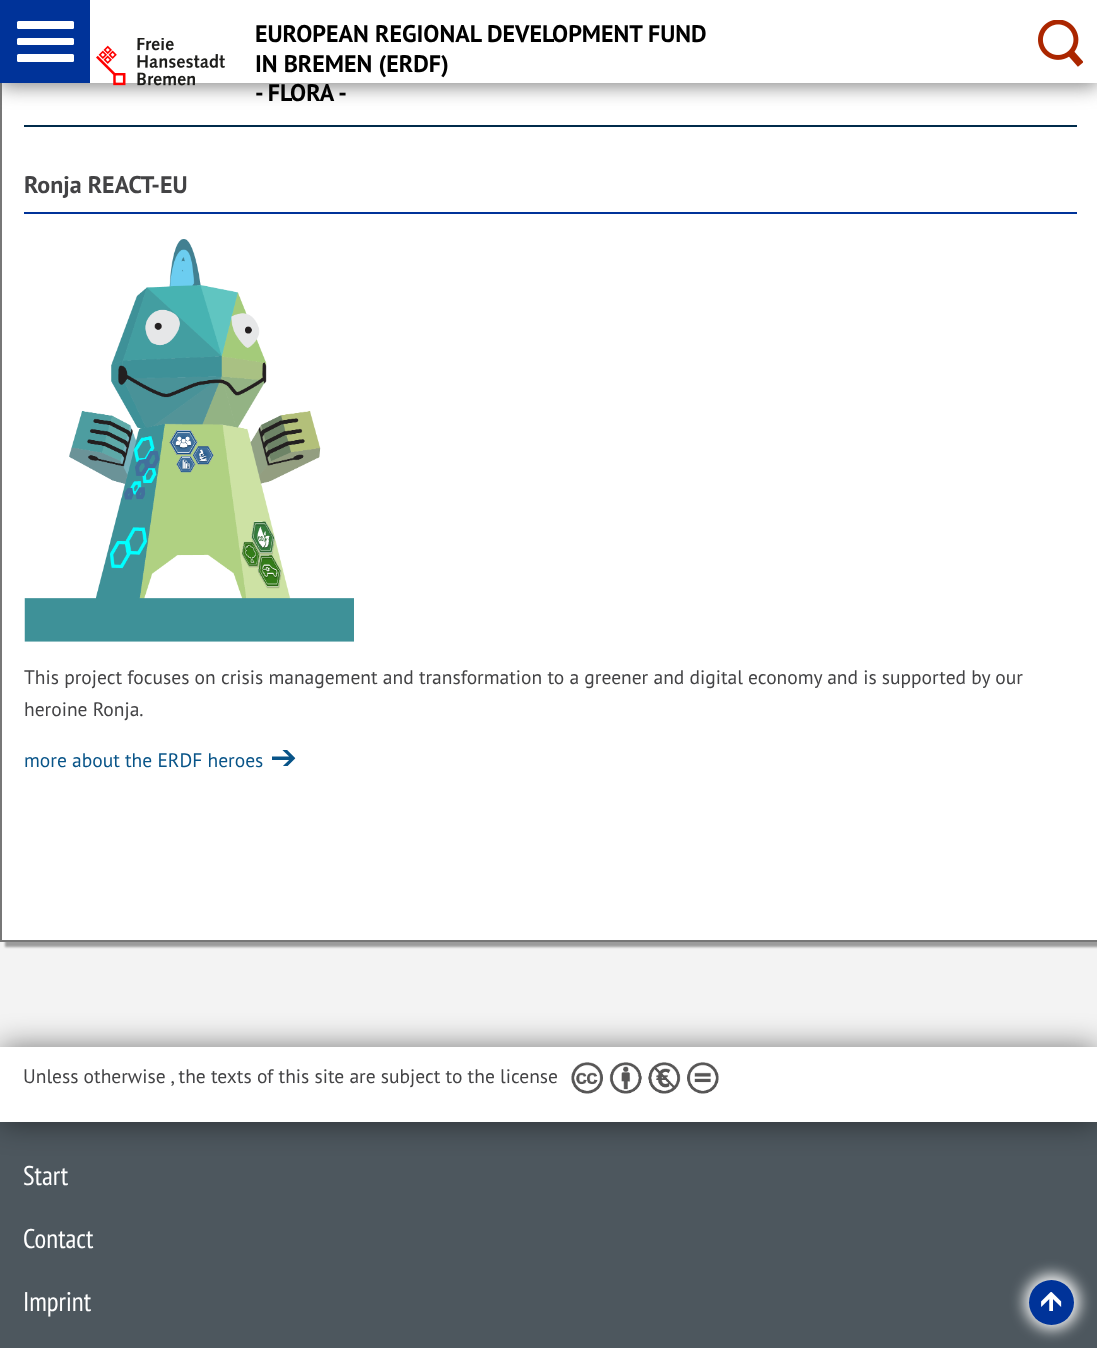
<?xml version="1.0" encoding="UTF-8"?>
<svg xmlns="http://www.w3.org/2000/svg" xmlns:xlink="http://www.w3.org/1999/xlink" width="1097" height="1348">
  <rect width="100%" height="100%" fill="#f3f3f3" />
  <rect x="5" y="-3" width="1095" height="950" fill="#323232" fill-opacity="0.45" filter="blur(1px)" />
  <rect x="2" y="83" width="1095" height="857" fill="#ffffff" />
  <rect x="1" y="-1" width="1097" height="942" fill="none" stroke="#777777" stroke-width="2" />
  <rect y="3" width="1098" height="83" fill="#646464" fill-opacity="0.8" filter="blur(10px)" />
  <rect width="90" height="83" fill="#003399" />
  <rect x="17" y="21" width="57" height="8" rx="1.5" fill="#ffffff" />
  <rect x="17" y="38" width="57" height="7" rx="1.5" fill="#ffffff" />
  <rect x="17" y="54" width="57" height="8" rx="1.5" fill="#ffffff" />
  <rect x="90" width="1007" height="83" fill="#ffffff" />
  <image x="96" y="38" width="129" height="48" xlink:href="image1.png" />
  <image x="1038" y="20" width="45" height="47" xlink:href="image2.png" />
  <rect x="24" y="125" width="1053" height="2" fill="#002b4b" />
  <rect x="24" y="212" width="1053" height="2" fill="#003399" />
  <image x="24" y="239" width="330" height="403" xlink:href="image3.png" />
  <image x="272" y="750" width="24" height="16" xlink:href="image4.png" />
  <rect y="1122" width="1097" height="226" fill="#4d575e" />
  <rect y="1047" width="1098" height="75" fill="#000000" fill-opacity="0.5" filter="blur(15px)" />
  <rect y="1047" width="1097" height="75" fill="#ffffff" />
  <image x="571" y="1062" width="148" height="32" xlink:href="image5.png" />
  <rect x="1025" y="1275" width="54" height="54" rx="27" fill="#ffffff" filter="blur(7.5px)" />
  <circle cx="1051.5" cy="1302.5" r="22.5" fill="#003399" />
  <image x="1041" y="1292" width="21" height="19" xlink:href="image6.png" />
  <text x="255" y="42" style="font-family: PT Sans; font-size: 24px; font-weight: bold; fill: #000000">EUROPEAN REGIONAL DEVELOPMENT FUND</text>
  <text x="255" y="72" style="font-family: PT Sans; font-size: 24px; font-weight: bold; fill: #000000">IN BREMEN (ERDF)</text>
  <text x="255" y="101" style="font-family: PT Sans; font-size: 24px; font-weight: bold; fill: #000000">- FLORA -</text>
  <text x="24" y="193" style="font-family: PT Sans; font-size: 24px; font-weight: bold; fill: #434345">Ronja REACT-EU</text>
  <text x="24" y="684" style="font-family: PT Sans; font-size: 19.5px; fill: #434345">This project focuses on crisis management and transformation to a greener and digital economy and is supported by our</text>
  <text x="24" y="716" style="font-family: PT Sans; font-size: 19.5px; fill: #434345">heroine Ronja.</text>
  <text x="24" y="767" style="font-family: PT Sans; font-size: 19.5px; fill: #085488">more about the ERDF heroes</text>
  <text x="23" y="1083" style="font-family: PT Sans; font-size: 19.5px; fill: #434345">Unless otherwise , the texts of this site are subject to the license</text>
  <text x="23" y="1185" style="font-family: PT Sans Narrow; font-size: 27px; fill: #ffffff">Start</text>
  <text x="23" y="1248" style="font-family: PT Sans Narrow; font-size: 27px; fill: #ffffff">Contact</text>
  <text x="23" y="1311" style="font-family: PT Sans Narrow; font-size: 27px; fill: #ffffff">Imprint</text>
</svg>
